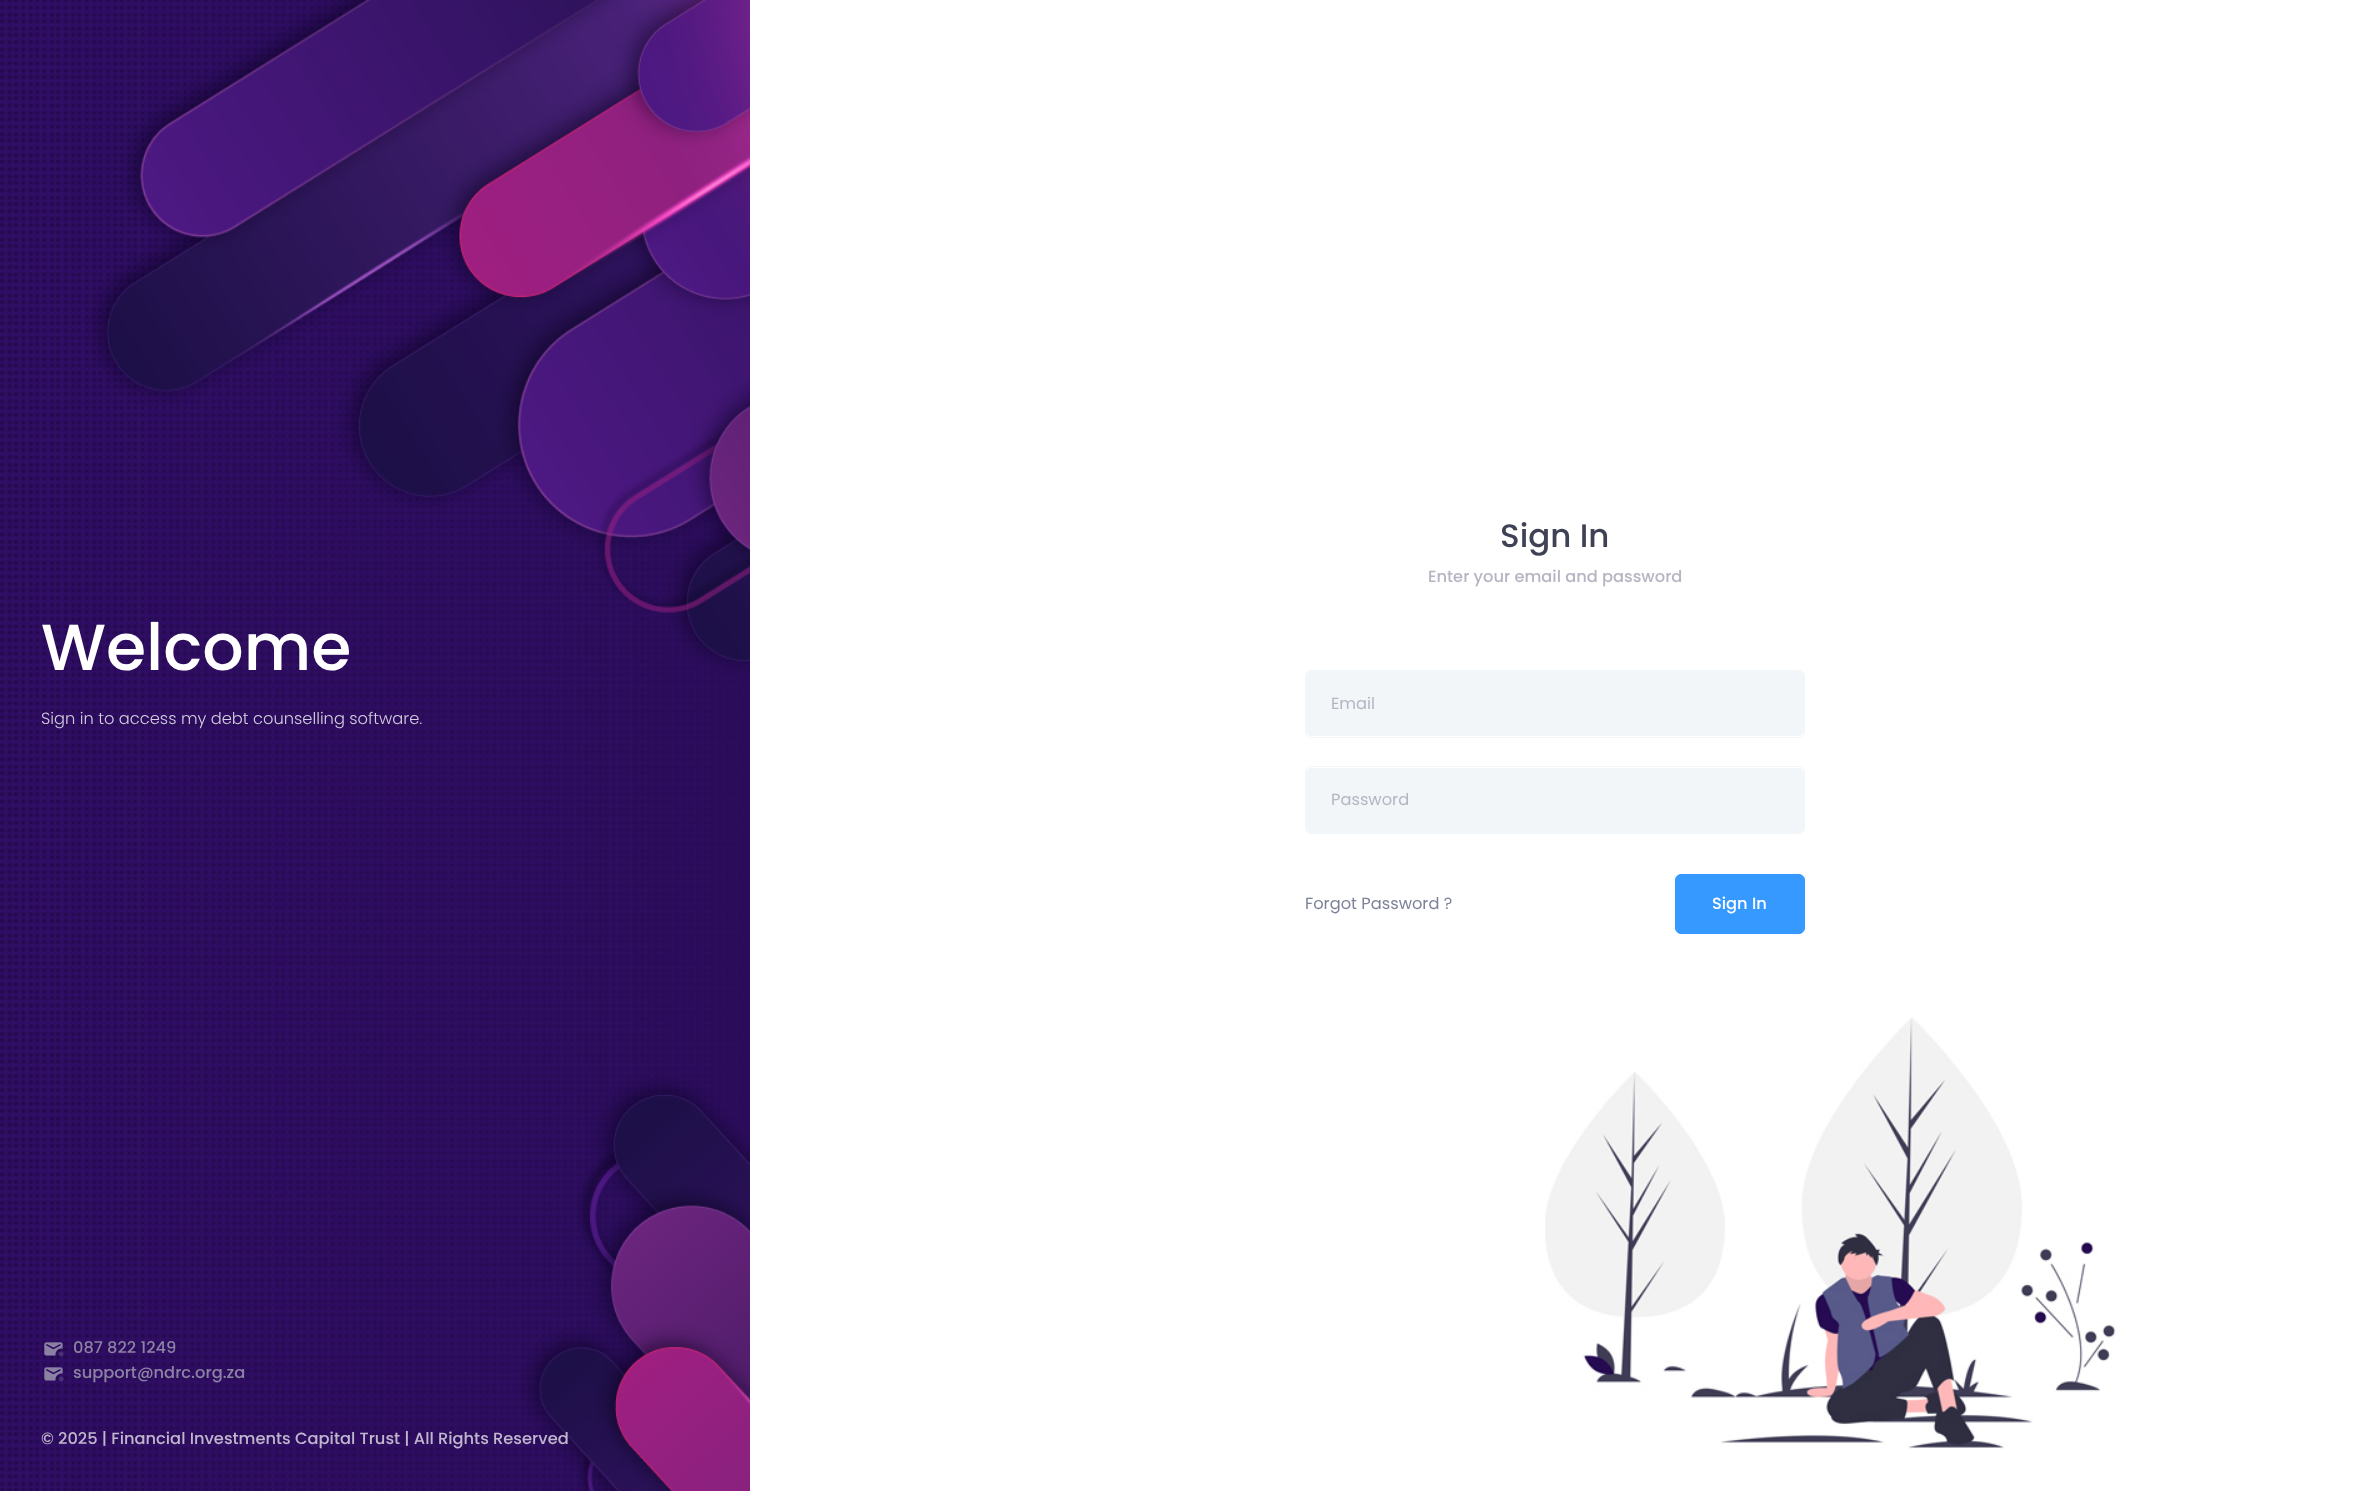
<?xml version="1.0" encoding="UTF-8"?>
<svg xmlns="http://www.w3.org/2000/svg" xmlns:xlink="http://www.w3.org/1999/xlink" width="2360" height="1491">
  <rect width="100%" height="100%" fill="#ffffff" />
  <image x="0" y="0" width="750" height="1491" xlink:href="image1.png" />
  <image x="44" y="1342" width="20" height="15" xlink:href="image2.png" />
  <image x="44" y="1367" width="20" height="15" xlink:href="image3.png" />
  <image x="1545" y="1017" width="571" height="432" xlink:href="image4.png" />
  <rect x="1306" y="671" width="498" height="65" rx="5" fill="#f3f6f9" />
  <rect x="1305.5" y="670.5" width="499" height="67" rx="5.5" fill="none" stroke="#f3f6f9" />
  <rect x="1306" y="768" width="498" height="65" rx="5" fill="#f3f6f9" />
  <rect x="1305.5" y="766.5" width="499" height="67" rx="5.5" fill="none" stroke="#f3f6f9" />
  <rect x="1675.5" y="874.5" width="129" height="59" rx="5.5" fill="#3699ff" stroke="#3699ff" />
  <text x="41" y="670" style="font-family: Poppins; font-size: 65px; font-weight: 500; fill: #ffffff">Welcome</text>
  <text x="41" y="724" style="font-family: Poppins; font-size: 16.25px; font-weight: 300; fill: #d5cedf">Sign in to access my debt counselling software.</text>
  <text x="73" y="1353" style="font-family: Poppins; font-size: 16.25px; font-weight: 500; fill: #8c82a4">087 822 1249</text>
  <text x="73" y="1378" style="font-family: Poppins; font-size: 16.25px; font-weight: 500; fill: #8c82a4">support@ndrc.org.za</text>
  <text x="41" y="1444" style="font-family: Poppins; font-size: 16.25px; font-weight: 500; fill: #c0b6ce">© 2025 | Financial Investments Capital Trust | All Rights Reserved</text>
  <text x="1500" y="547" style="font-family: Poppins; font-size: 32.5px; font-weight: 500; fill: #3f4254">Sign In</text>
  <text x="1428" y="582" style="font-family: Poppins; font-size: 16.25px; font-weight: 500; fill: #b5b5c3">Enter your email and password</text>
  <text x="1331" y="709" style="font-family: Poppins; font-size: 16.25px; fill: #b5b5c3">Email</text>
  <text x="1331" y="805" style="font-family: Poppins; font-size: 16.25px; fill: #b5b5c3">Password</text>
  <text x="1305" y="909" style="font-family: Poppins; font-size: 16.25px; fill: #7e8299">Forgot Password ?</text>
  <text x="1712" y="909" style="font-family: Poppins; font-size: 16.25px; font-weight: 500; fill: #ffffff">Sign In</text>
</svg>
